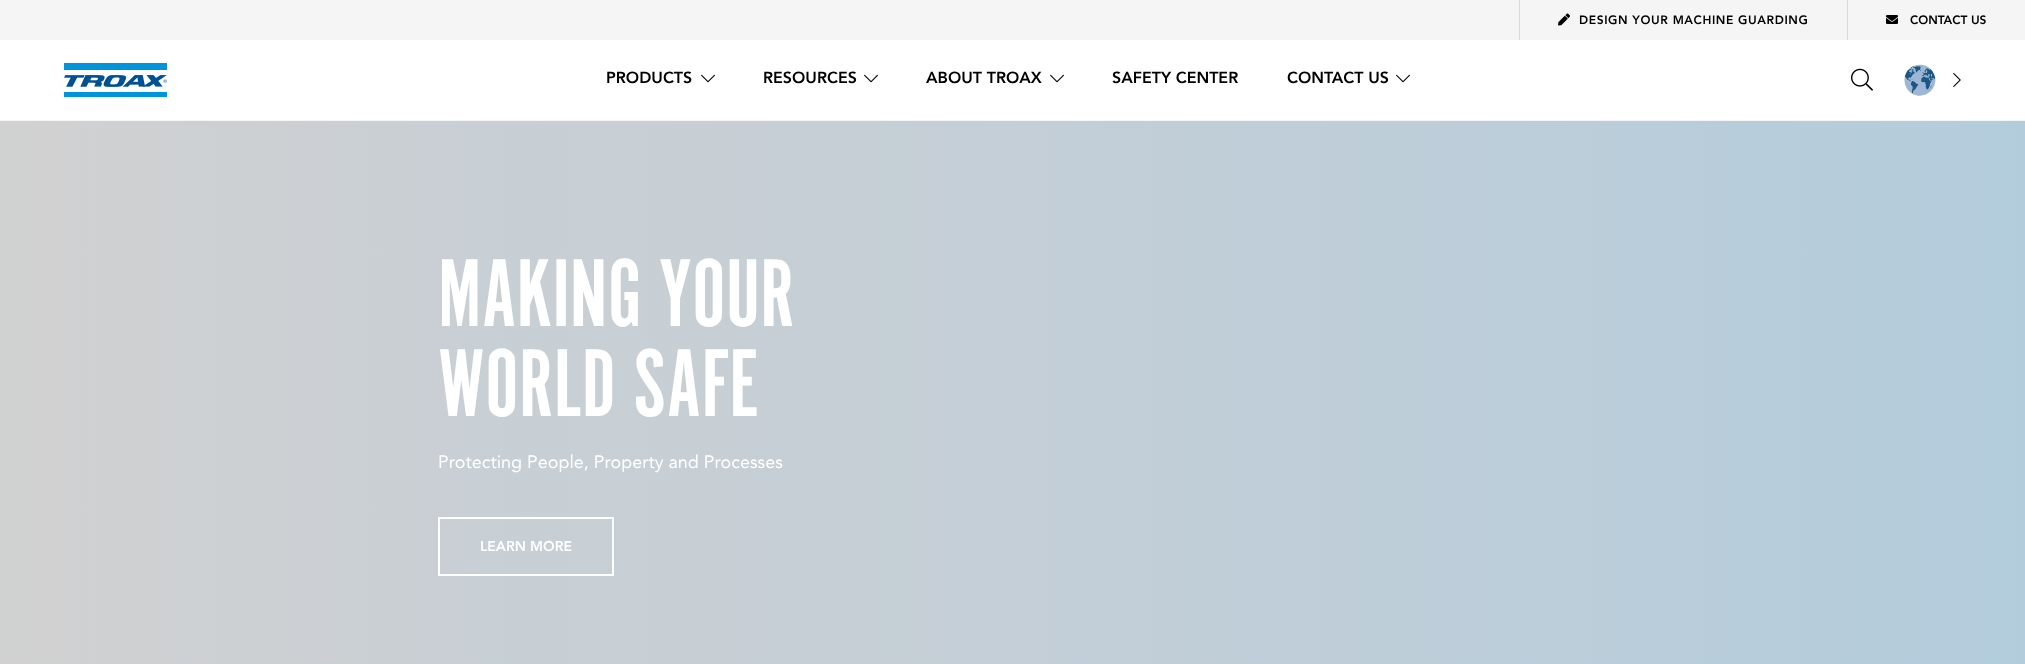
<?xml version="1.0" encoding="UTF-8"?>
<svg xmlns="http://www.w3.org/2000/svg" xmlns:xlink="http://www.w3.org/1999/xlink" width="2025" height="664">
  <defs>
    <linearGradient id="g1" gradientUnits="userSpaceOnUse" x1="0" y1="376" x2="2025" y2="376"><stop offset="0" stop-color="#d1d1d1" /><stop offset="0.22" stop-color="#c9cfd4" /><stop offset="0.43" stop-color="#c6cfd6" /><stop offset="1" stop-color="#b3ccdc" /></linearGradient>
  </defs>
  <rect width="100%" height="100%" fill="#ffffff" />
  <rect y="120" width="2025" height="1" fill="#f5f5f5" />
  <rect width="2025" height="40" fill="#f5f5f5" />
  <rect x="1519" width="1" height="40" fill="#dad9d6" />
  <image x="1558" y="13" width="12" height="13" xlink:href="image1.png" />
  <rect x="1847" width="1" height="40" fill="#dad9d6" />
  <image x="1886" y="15" width="12" height="9" xlink:href="image2.png" />
  <image x="64" y="63" width="103" height="34" xlink:href="image3.png" />
  <image x="701" y="74" width="14" height="9" xlink:href="image4.png" />
  <image x="864" y="74" width="14" height="9" xlink:href="image4.png" />
  <image x="1050" y="74" width="14" height="9" xlink:href="image4.png" />
  <image x="1396" y="74" width="14" height="9" xlink:href="image4.png" />
  <image x="1851" y="68" width="22" height="23" xlink:href="image5.png" />
  <image x="1904" y="64" width="32" height="32" xlink:href="image6.png" />
  <image x="1953" y="73" width="8" height="14" xlink:href="image7.png" />
  <rect y="121" width="2025" height="543" fill="url(#g1)" />
  <rect x="439" y="518" width="174" height="57" fill="none" stroke="#ffffff" stroke-width="2" />
  <text x="1579" y="24" style="font-family: 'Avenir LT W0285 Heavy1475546'; font-size: 12px; font-weight: 900; letter-spacing: 0.6px; fill: #000000">DESIGN YOUR MACHINE GUARDING</text>
  <text x="1910" y="24" style="font-family: 'Avenir LT W0285 Heavy1475546'; font-size: 12px; font-weight: 900; fill: #000000">CONTACT US</text>
  <text x="606" y="83" style="font-family: 'Avenir LT W0285 Heavy1475546'; font-size: 16px; font-weight: 900; fill: #000000">PRODUCTS</text>
  <text x="763" y="83" style="font-family: 'Avenir LT W0285 Heavy1475546'; font-size: 16px; font-weight: 900; fill: #000000">RESOURCES</text>
  <text x="926" y="83" style="font-family: 'Avenir LT W0285 Heavy1475546'; font-size: 16px; font-weight: 900; fill: #000000">ABOUT TROAX</text>
  <text x="1112" y="83" style="font-family: 'Avenir LT W0285 Heavy1475546'; font-size: 16px; font-weight: 900; fill: #000000">SAFETY CENTER</text>
  <text x="1287" y="83" style="font-family: 'Avenir LT W0285 Heavy1475546'; font-size: 16px; font-weight: 900; fill: #000000">CONTACT US</text>
  <text x="438" y="326" style="font-family: 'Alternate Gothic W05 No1'; font-size: 100px; fill: #ffffff">MAKING YOUR</text>
  <text x="438" y="416" style="font-family: 'Alternate Gothic W05 No1'; font-size: 100px; fill: #ffffff">WORLD SAFE</text>
  <text x="438" y="468" style="font-family: 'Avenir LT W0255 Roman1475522'; font-size: 18px; fill: #ffffff">Protecting People, Property and Processes</text>
  <text x="480" y="551" style="font-family: 'Avenir LT W0285 Heavy1475546'; font-size: 14px; font-weight: 900; fill: #ffffff">LEARN MORE</text>
</svg>
